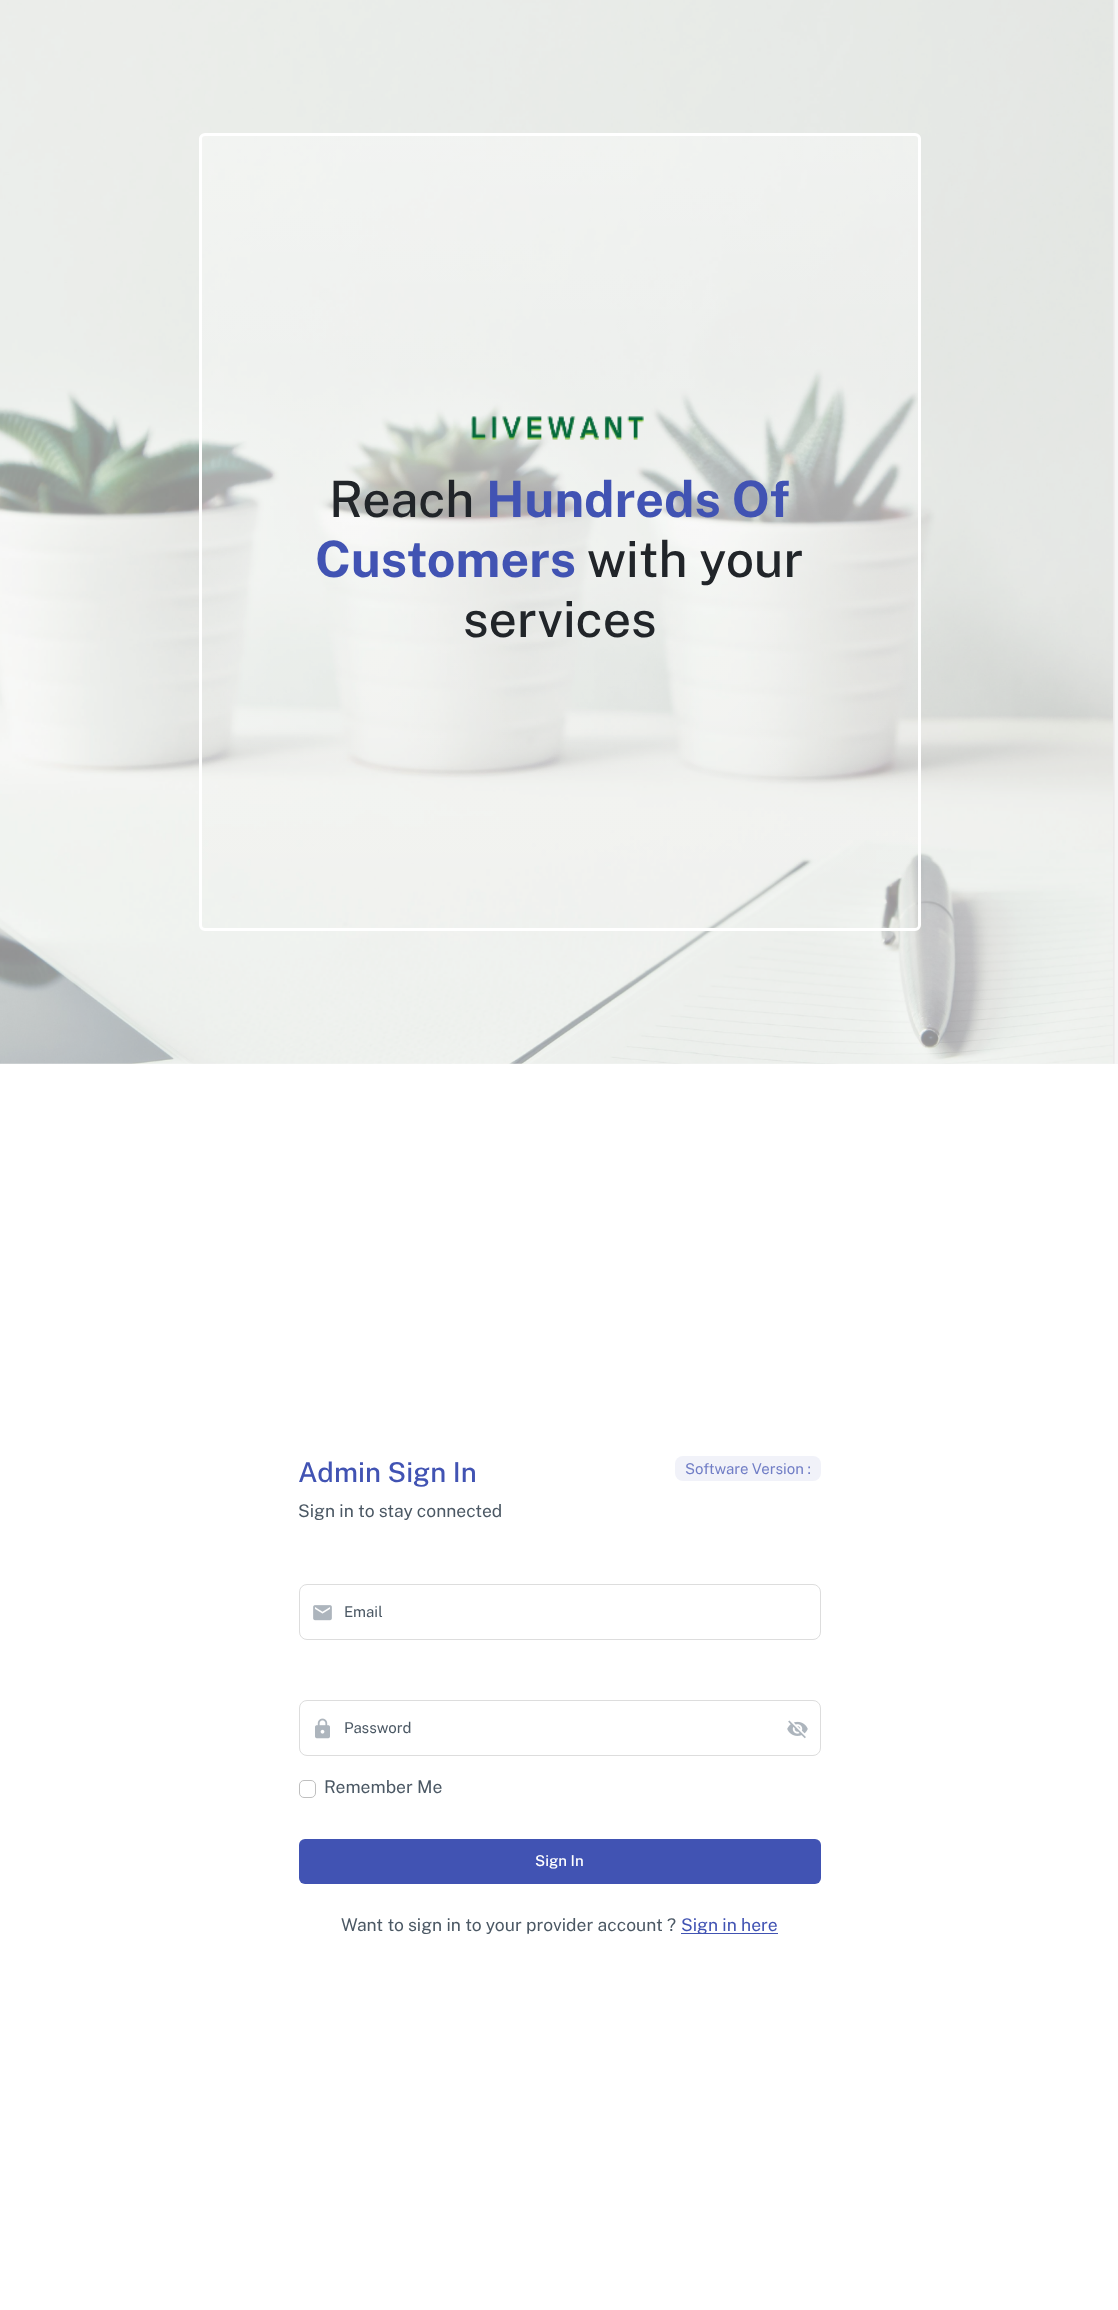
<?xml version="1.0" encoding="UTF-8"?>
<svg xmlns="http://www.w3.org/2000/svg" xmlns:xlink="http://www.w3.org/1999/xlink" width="1118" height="2310">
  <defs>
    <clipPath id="clip1"><rect x="199" y="133" width="722" height="798" rx="6" /></clipPath>
    <linearGradient id="g1" gradientUnits="userSpaceOnUse" x1="560" y1="135" x2="560" y2="929"><stop offset="0" stop-color="#ffffff" stop-opacity="0.4" /><stop offset="1" stop-color="#ffffff" stop-opacity="0" /></linearGradient>
  </defs>
  <rect width="100%" height="100%" fill="#f5f5f5" />
  <image x="0" y="0" width="1115" height="1064" xlink:href="image1.png" />
  <g clip-path="url(#clip1)">
    <rect x="199" y="135" width="722" height="751" fill="url(#g1)" />
  </g>
  <rect x="200.5" y="134.5" width="719" height="795" rx="4.5" fill="none" stroke="#ffffff" stroke-width="3" />
  <image x="471" y="416" width="173" height="24" xlink:href="image2.png" />
  <rect y="1064" width="1118" height="1246" fill="#ffffff" />
  <rect x="675" y="1456" width="146" height="25" rx="8" fill="#f1f2f9" />
  <rect x="299.5" y="1584.5" width="521" height="55" rx="7.5" fill="none" stroke="#dddddd" />
  <image x="313" y="1605" width="19" height="16" xlink:href="image3.png" />
  <rect x="299.5" y="1700.5" width="521" height="55" rx="7.5" fill="none" stroke="#dddddd" />
  <image x="315" y="1718" width="15" height="21" xlink:href="image4.png" />
  <image x="787" y="1720" width="21" height="19" xlink:href="image5.png" />
  <rect x="299.5" y="1780.5" width="16" height="17" rx="4.5" fill="none" stroke="#bfbfbf" />
  <rect x="299" y="1839" width="522" height="45" rx="6" fill="#4153b3" />
  <rect x="681" y="1933" width="97" height="1" fill="#4153b3" />
  <text x="329" y="517" style="font-family: Public Sans; font-size: 50px; font-weight: 500; fill: #212529">Reach</text>
  <text x="486" y="517" style="font-family: Public Sans; font-size: 50px; font-weight: bold; fill: #4153b3">Hundreds Of</text>
  <text x="315" y="577" style="font-family: Public Sans; font-size: 50px; font-weight: bold; fill: #4153b3">Customers</text>
  <text x="587" y="577" style="font-family: Public Sans; font-size: 50px; font-weight: 500; fill: #212529">with your</text>
  <text x="463" y="637" style="font-family: Public Sans; font-size: 50px; font-weight: 500; fill: #212529">services</text>
  <text x="298" y="1482" style="font-family: Public Sans; font-size: 27.5px; font-weight: 500; fill: #4153b3">Admin Sign In</text>
  <text x="298" y="1517" style="font-family: Public Sans; font-size: 17.5px; fill: #4b5864">Sign in to stay connected</text>
  <text x="685" y="1474" style="font-family: Public Sans; font-size: 15px; fill: #717ec6">Software Version :</text>
  <text x="344" y="1617" style="font-family: Public Sans; font-size: 15px; fill: #4b5864">Email</text>
  <text x="344" y="1733" style="font-family: Public Sans; font-size: 15px; fill: #4b5864">Password</text>
  <text x="324" y="1793" style="font-family: Public Sans; font-size: 17.5px; fill: #4b5864">Remember Me</text>
  <text x="535" y="1866" style="font-family: Public Sans; font-size: 15px; font-weight: 500; fill: #ffffff">Sign In</text>
  <text x="341" y="1931" style="font-family: Public Sans; font-size: 17.5px; fill: #4b5864">Want to sign in to your provider account ?</text>
  <text x="681" y="1931" style="font-family: Public Sans; font-size: 17.5px; fill: #4153b3">Sign in here</text>
</svg>
